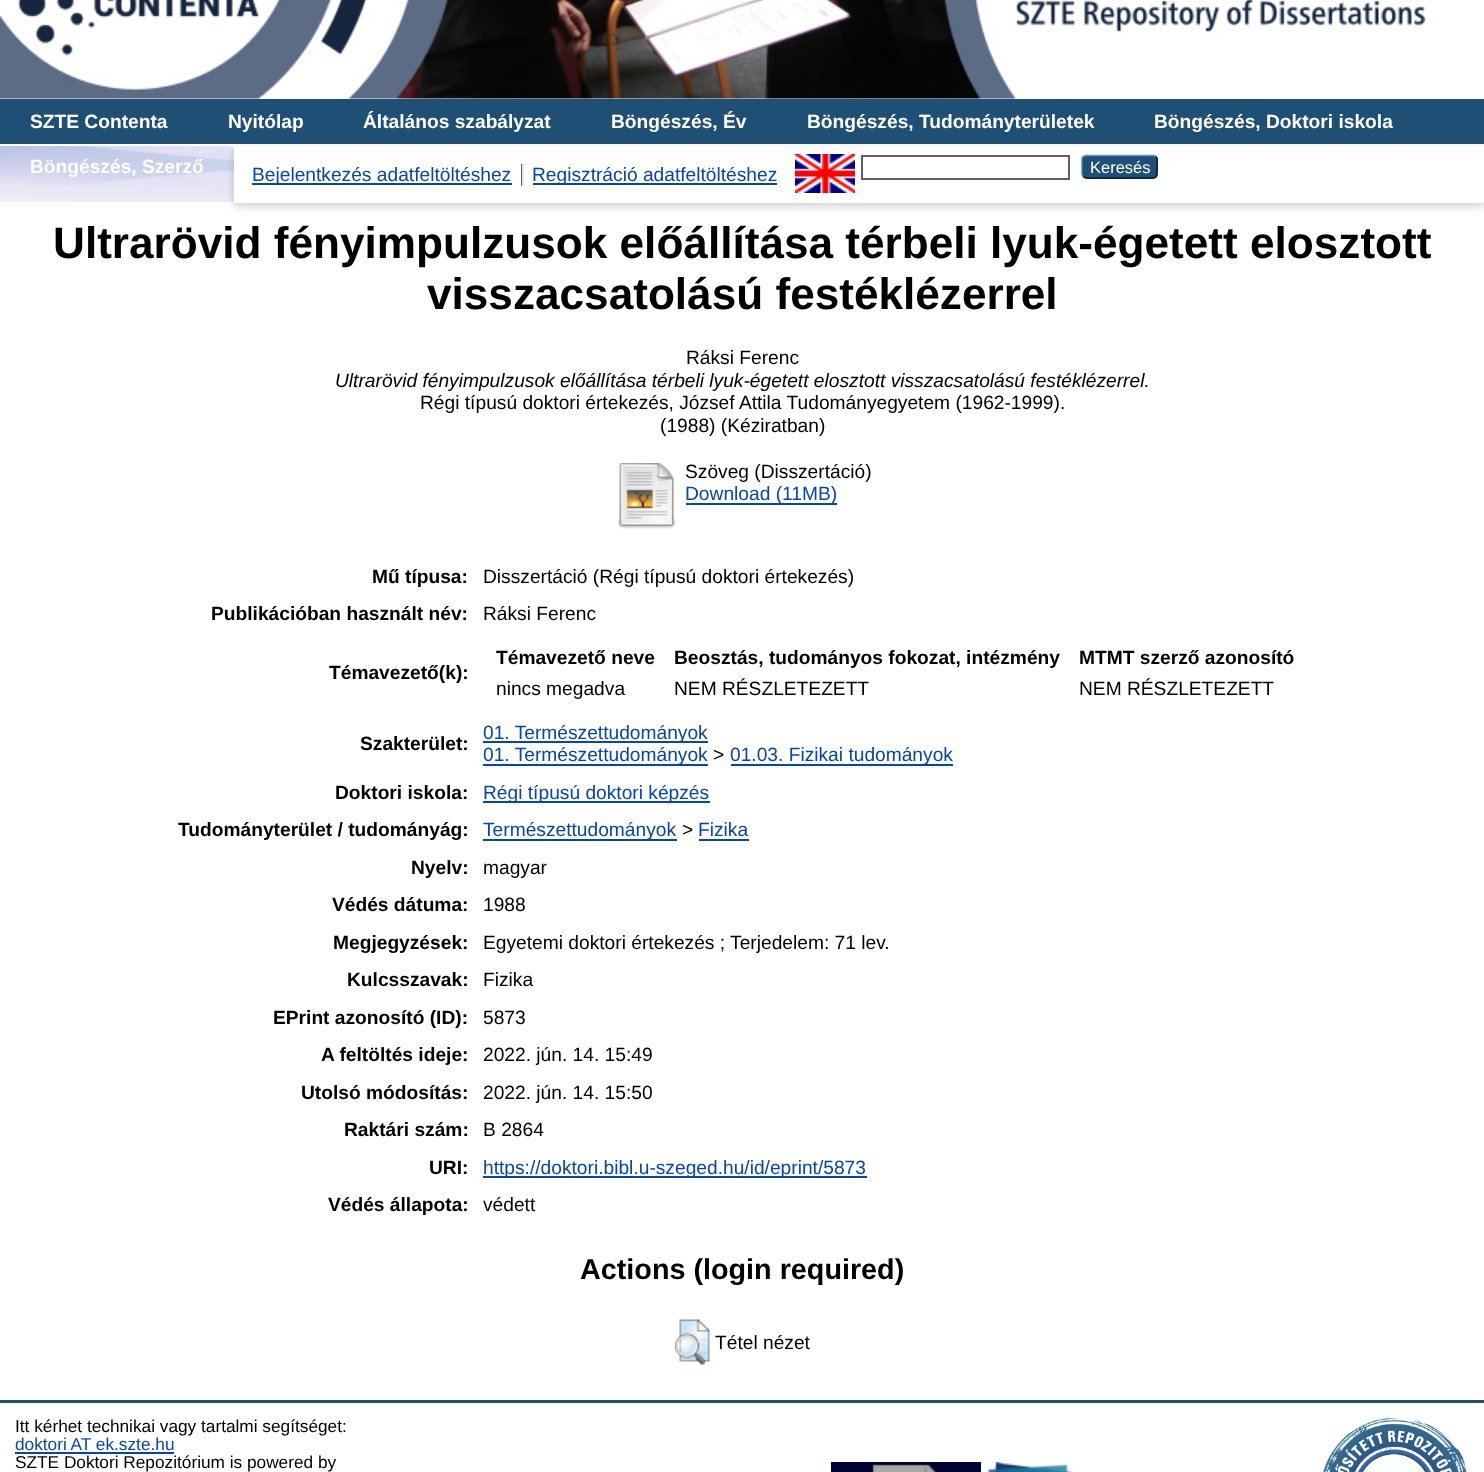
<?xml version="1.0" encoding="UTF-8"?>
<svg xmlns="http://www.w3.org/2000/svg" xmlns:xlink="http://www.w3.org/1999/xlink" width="1484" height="1472">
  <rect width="100%" height="100%" fill="#ffffff" />
  <image x="0" y="146" width="234" height="56" xlink:href="image1.png" />
  <image x="0" y="0" width="1426" height="99" xlink:href="image2.png" />
  <rect y="99" width="1484" height="45" fill="#204f76" />
  <rect x="234" y="149" width="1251" height="57" fill="#646464" fill-opacity="0.3" filter="blur(4.5px)" />
  <rect x="234" y="146" width="1250" height="57" fill="#ffffff" />
  <rect x="521" y="164" width="1" height="22" fill="#606060" />
  <rect x="252" y="183" width="260" height="2" fill="#0645ad" />
  <rect x="522" y="164" width="2" height="22" fill="#e8e8e8" />
  <rect x="533" y="183" width="244" height="2" fill="#0645ad" />
  <image x="795" y="154" width="60" height="39" xlink:href="image3.png" />
  <rect x="862" y="156" width="207" height="23" fill="none" stroke="#606060" stroke-width="2" />
  <rect x="1082" y="155" width="76" height="24" rx="5" fill="#1f4f76" />
  <path d="M 1083.5 156.5 l 2 -1 h 68.5 l 2 1" fill="none" stroke="#5b97c7" stroke-width="1.5" />
  <path d="M 1156 156.5 c 2.5 2 1 7 1 10 c 0 13.5 0.5 11.5 -15 11.5 h -45 c -1 0 -11 1.5 -13.5 -1.5" fill="none" stroke="#0d2131" stroke-width="1.5" />
  <path d="M 1083.5 176.5 c -1 -0.5 -1.5 -1.5 -1.5 -2.5 v -15 c 0 -1 0.5 -2 1.5 -2.5" fill="none" stroke="#5287b3" stroke-width="1.5" />
  <image x="617" y="463" width="59" height="66" xlink:href="image4.png" />
  <rect x="686" y="503" width="151" height="2" fill="#0645ad" />
  <rect x="483" y="741" width="225" height="2" fill="#0645ad" />
  <rect x="483" y="764" width="225" height="2" fill="#0645ad" />
  <rect x="731" y="764" width="222" height="2" fill="#0645ad" />
  <rect x="483" y="801" width="227" height="2" fill="#0645ad" />
  <rect x="483" y="839" width="194" height="2" fill="#0645ad" />
  <rect x="699" y="839" width="50" height="2" fill="#0645ad" />
  <rect x="483" y="1176" width="384" height="2" fill="#0645ad" />
  <image x="675" y="1319" width="35" height="46" xlink:href="image5.png" />
  <rect y="1400" width="1484" height="3" fill="#204f76" />
  <rect x="15" y="1452" width="159" height="2" fill="#0645ad" />
  <image x="831" y="1462" width="150" height="10" xlink:href="image6.png" />
  <image x="987" y="1462" width="87" height="10" xlink:href="image7.png" />
  <image x="1323" y="1417" width="144" height="55" xlink:href="image8.png" />
  <text x="30" y="128" style="font-family: Liberation Sans; font-size: 19.2px; font-weight: bold; fill: #ffffff">SZTE Contenta</text>
  <text x="228" y="128" style="font-family: Liberation Sans; font-size: 19.2px; font-weight: bold; fill: #ffffff">Nyitólap</text>
  <text x="363" y="128" style="font-family: Liberation Sans; font-size: 19.2px; font-weight: bold; fill: #ffffff">Általános szabályzat</text>
  <text x="611" y="128" style="font-family: Liberation Sans; font-size: 19.2px; font-weight: bold; fill: #ffffff">Böngészés, Év</text>
  <text x="807" y="128" style="font-family: Liberation Sans; font-size: 19.2px; font-weight: bold; fill: #ffffff">Böngészés, Tudományterületek</text>
  <text x="1154" y="128" style="font-family: Liberation Sans; font-size: 19.2px; font-weight: bold; fill: #ffffff">Böngészés, Doktori iskola</text>
  <text x="30" y="173" style="font-family: Liberation Sans; font-size: 19.2px; font-weight: bold; fill: #ffffff">Böngészés, Szerző</text>
  <text x="252" y="181" style="font-family: Liberation Sans; font-size: 19.2px; fill: #0645ad">Bejelentkezés adatfeltöltéshez</text>
  <text x="532" y="181" style="font-family: Liberation Sans; font-size: 19.2px; fill: #0645ad">Regisztráció adatfeltöltéshez</text>
  <text x="1090" y="173" style="font-family: Liberation Sans; font-size: 16.5px; fill: #ffffff">Keresés</text>
  <text x="53" y="258" style="font-family: Liberation Sans; font-size: 44.15px; font-weight: bold; fill: #000000">Ultrarövid fényimpulzusok előállítása térbeli lyuk-égetett elosztott</text>
  <text x="427" y="309" style="font-family: Liberation Sans; font-size: 44.15px; font-weight: bold; fill: #000000">visszacsatolású festéklézerrel</text>
  <text x="686" y="364" style="font-family: Liberation Sans; font-size: 19.2px; fill: #000000">Ráksi Ferenc</text>
  <text x="335" y="387" style="font-family: Liberation Sans; font-size: 19.2px; font-style: italic; fill: #000000">Ultrarövid fényimpulzusok előállítása térbeli lyuk-égetett elosztott visszacsatolású festéklézerrel.</text>
  <text x="420" y="409" style="font-family: Liberation Sans; font-size: 19.2px; fill: #000000">Régi típusú doktori értekezés, József Attila Tudományegyetem (1962-1999).</text>
  <text x="660" y="432" style="font-family: Liberation Sans; font-size: 19.2px; fill: #000000">(1988) (Kéziratban)</text>
  <text x="685" y="478" style="font-family: Liberation Sans; font-size: 19.2px; fill: #000000">Szöveg (Disszertáció)</text>
  <text x="685" y="500" style="font-family: Liberation Sans; font-size: 19.2px; fill: #0645ad">Download (11MB)</text>
  <text x="372" y="583" style="font-family: Liberation Sans; font-size: 19.2px; font-weight: bold; fill: #000000">Mű típusa:</text>
  <text x="483" y="583" style="font-family: Liberation Sans; font-size: 19.2px; fill: #000000">Disszertáció (Régi típusú doktori értekezés)</text>
  <text x="211" y="620" style="font-family: Liberation Sans; font-size: 19.2px; font-weight: bold; fill: #000000">Publikációban használt név:</text>
  <text x="483" y="620" style="font-family: Liberation Sans; font-size: 19.2px; fill: #000000">Ráksi Ferenc</text>
  <text x="329" y="679" style="font-family: Liberation Sans; font-size: 19.2px; font-weight: bold; fill: #000000">Témavezető(k):</text>
  <text x="496" y="664" style="font-family: Liberation Sans; font-size: 19.2px; font-weight: bold; fill: #000000">Témavezető neve</text>
  <text x="674" y="664" style="font-family: Liberation Sans; font-size: 19.2px; font-weight: bold; fill: #000000">Beosztás, tudományos fokozat, intézmény</text>
  <text x="1079" y="664" style="font-family: Liberation Sans; font-size: 19.2px; font-weight: bold; fill: #000000">MTMT szerző azonosító</text>
  <text x="496" y="695" style="font-family: Liberation Sans; font-size: 19.2px; fill: #000000">nincs megadva</text>
  <text x="674" y="695" style="font-family: Liberation Sans; font-size: 19.2px; fill: #000000">NEM RÉSZLETEZETT</text>
  <text x="1079" y="695" style="font-family: Liberation Sans; font-size: 19.2px; fill: #000000">NEM RÉSZLETEZETT</text>
  <text x="360" y="750" style="font-family: Liberation Sans; font-size: 19.2px; font-weight: bold; fill: #000000">Szakterület:</text>
  <text x="483" y="739" style="font-family: Liberation Sans; font-size: 19.2px; fill: #0645ad">01. Természettudományok</text>
  <text x="483" y="761" style="font-family: Liberation Sans; font-size: 19.2px; fill: #0645ad">01. Természettudományok</text>
  <text x="713" y="761" style="font-family: Liberation Sans; font-size: 19.2px; fill: #000000">&gt;</text>
  <text x="730" y="761" style="font-family: Liberation Sans; font-size: 19.2px; fill: #0645ad">01.03. Fizikai tudományok</text>
  <text x="335" y="799" style="font-family: Liberation Sans; font-size: 19.2px; font-weight: bold; fill: #000000">Doktori iskola:</text>
  <text x="483" y="799" style="font-family: Liberation Sans; font-size: 19.2px; fill: #0645ad">Régi típusú doktori képzés</text>
  <text x="178" y="836" style="font-family: Liberation Sans; font-size: 19.2px; font-weight: bold; fill: #000000">Tudományterület / tudományág:</text>
  <text x="483" y="836" style="font-family: Liberation Sans; font-size: 19.2px; fill: #0645ad">Természettudományok</text>
  <text x="682" y="836" style="font-family: Liberation Sans; font-size: 19.2px; fill: #000000">&gt;</text>
  <text x="698" y="836" style="font-family: Liberation Sans; font-size: 19.2px; fill: #0645ad">Fizika</text>
  <text x="411" y="874" style="font-family: Liberation Sans; font-size: 19.2px; font-weight: bold; fill: #000000">Nyelv:</text>
  <text x="483" y="874" style="font-family: Liberation Sans; font-size: 19.2px; fill: #000000">magyar</text>
  <text x="332" y="911" style="font-family: Liberation Sans; font-size: 19.2px; font-weight: bold; fill: #000000">Védés dátuma:</text>
  <text x="483" y="911" style="font-family: Liberation Sans; font-size: 19.2px; fill: #000000">1988</text>
  <text x="333" y="949" style="font-family: Liberation Sans; font-size: 19.2px; font-weight: bold; fill: #000000">Megjegyzések:</text>
  <text x="483" y="949" style="font-family: Liberation Sans; font-size: 19.2px; fill: #000000">Egyetemi doktori értekezés ; Terjedelem: 71 lev.</text>
  <text x="347" y="986" style="font-family: Liberation Sans; font-size: 19.2px; font-weight: bold; fill: #000000">Kulcsszavak:</text>
  <text x="483" y="986" style="font-family: Liberation Sans; font-size: 19.2px; fill: #000000">Fizika</text>
  <text x="273" y="1024" style="font-family: Liberation Sans; font-size: 19.2px; font-weight: bold; fill: #000000">EPrint azonosító (ID):</text>
  <text x="483" y="1024" style="font-family: Liberation Sans; font-size: 19.2px; fill: #000000">5873</text>
  <text x="321" y="1061" style="font-family: Liberation Sans; font-size: 19.2px; font-weight: bold; fill: #000000">A feltöltés ideje:</text>
  <text x="483" y="1061" style="font-family: Liberation Sans; font-size: 19.2px; fill: #000000">2022. jún. 14. 15:49</text>
  <text x="301" y="1099" style="font-family: Liberation Sans; font-size: 19.2px; font-weight: bold; fill: #000000">Utolsó módosítás:</text>
  <text x="483" y="1099" style="font-family: Liberation Sans; font-size: 19.2px; fill: #000000">2022. jún. 14. 15:50</text>
  <text x="344" y="1136" style="font-family: Liberation Sans; font-size: 19.2px; font-weight: bold; fill: #000000">Raktári szám:</text>
  <text x="483" y="1136" style="font-family: Liberation Sans; font-size: 19.2px; fill: #000000">B 2864</text>
  <text x="429" y="1174" style="font-family: Liberation Sans; font-size: 19.2px; font-weight: bold; fill: #000000">URI:</text>
  <text x="483" y="1174" style="font-family: Liberation Sans; font-size: 19.2px; fill: #0645ad">https://doktori.bibl.u-szeged.hu/id/eprint/5873</text>
  <text x="328" y="1211" style="font-family: Liberation Sans; font-size: 19.2px; font-weight: bold; fill: #000000">Védés állapota:</text>
  <text x="483" y="1211" style="font-family: Liberation Sans; font-size: 19.2px; fill: #000000">védett</text>
  <text x="580" y="1279" style="font-family: Liberation Sans; font-size: 28.75px; font-weight: bold; fill: #000000">Actions (login required)</text>
  <text x="715" y="1349" style="font-family: Liberation Sans; font-size: 19.2px; fill: #000000">Tétel nézet</text>
  <text x="15" y="1432" style="font-family: Liberation Sans; font-size: 17.25px; fill: #000000">Itt kérhet technikai vagy tartalmi segítséget:</text>
  <text x="15" y="1450" style="font-family: Liberation Sans; font-size: 17.25px; fill: #0645ad">doktori AT ek.szte.hu</text>
  <text x="15" y="1468" style="font-family: Liberation Sans; font-size: 17.25px; fill: #000000">SZTE Doktori Repozitórium is powered by</text>
</svg>
